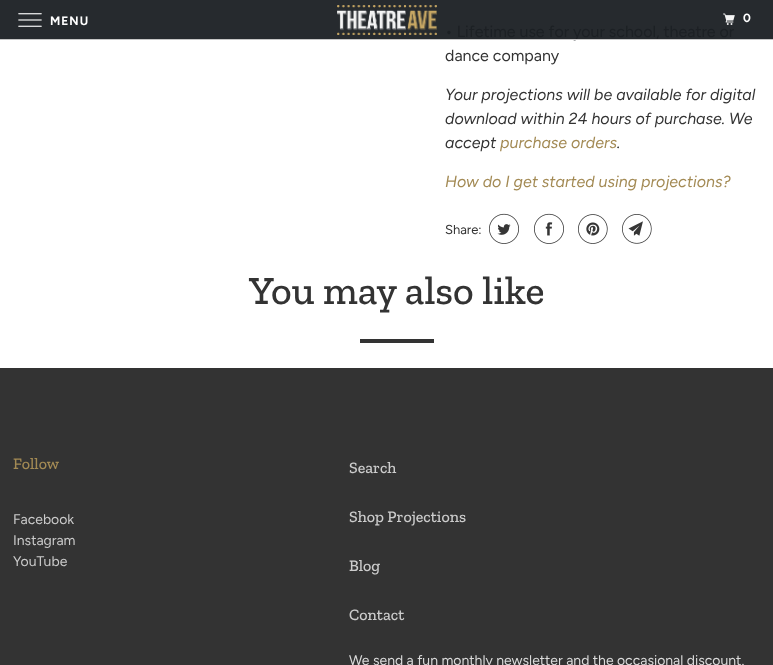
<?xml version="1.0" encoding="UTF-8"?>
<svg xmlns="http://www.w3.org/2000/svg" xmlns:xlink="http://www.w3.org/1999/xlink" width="773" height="665">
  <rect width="100%" height="100%" fill="#333333" />
  <rect width="773" height="40" fill="#262a2e" />
  <image x="18" y="13" width="24" height="14" xlink:href="image1.png" />
  <image x="337" y="5" width="100" height="30" xlink:href="image2.png" />
  <image x="723" y="13" width="12" height="12" xlink:href="image3.png" />
  <rect y="40" width="773" height="328" fill="#ffffff" />
  <image x="489" y="213" width="30" height="31" xlink:href="image4.png" />
  <image x="534" y="213" width="30" height="31" xlink:href="image5.png" />
  <image x="578" y="214" width="30" height="30" xlink:href="image6.png" />
  <image x="622" y="214" width="30" height="30" xlink:href="image7.png" />
  <rect x="360" y="339" width="74" height="4" fill="#333333" />
  <text x="50" y="25" style="font-family: Figtree; font-size: 12px; font-weight: bold; letter-spacing: 1px; fill: #ffffff">MENU</text>
  <text x="743" y="22" style="font-family: Figtree; font-size: 12px; font-weight: bold; letter-spacing: 1px; fill: #ffffff">0</text>
  <text x="445" y="37" style="font-family: Figtree; font-size: 16px; fill: #1c2024">• Lifetime use for your school, theatre or</text>
  <rect y="39" width="773" height="1" fill="#cdcdcd" fill-opacity="0.95" />
  <text x="445" y="61" style="font-family: Figtree; font-size: 16px; fill: #333333">dance company</text>
  <text x="445" y="100" style="font-family: Figtree; font-size: 16px; font-style: italic; fill: #333333">Your projections will be available for digital</text>
  <text x="445" y="124" style="font-family: Figtree; font-size: 16px; font-style: italic; fill: #333333">download within 24 hours of purchase. We</text>
  <text x="445" y="148" style="font-family: Figtree; font-size: 16px; font-style: italic; fill: #333333">accept</text>
  <text x="500" y="148" style="font-family: Figtree; font-size: 16px; font-style: italic; fill: #a38a54">purchase orders</text>
  <text x="617" y="148" style="font-family: Figtree; font-size: 16px; font-style: italic; fill: #333333">.</text>
  <text x="445" y="187" style="font-family: Figtree; font-size: 16px; font-style: italic; fill: #a38a54">How do I get started using projections?</text>
  <text x="445" y="234" style="font-family: Figtree; font-size: 13px; fill: #333333">Share:</text>
  <text x="249" y="304" style="font-family: Zilla Slab; font-size: 40px; font-weight: 500; fill: #333333">You may also like</text>
  <text x="13" y="469" style="font-family: Zilla Slab; font-size: 16px; font-weight: 500; fill: #a38a54">Follow</text>
  <text x="13" y="524" style="font-family: Figtree; font-size: 14px; fill: #cccccc">Facebook</text>
  <text x="13" y="545" style="font-family: Figtree; font-size: 14px; fill: #cccccc">Instagram</text>
  <text x="13" y="566" style="font-family: Figtree; font-size: 14px; fill: #cccccc">YouTube</text>
  <text x="349" y="473" style="font-family: Zilla Slab; font-size: 16px; font-weight: 500; fill: #cccccc">Search</text>
  <text x="349" y="522" style="font-family: Zilla Slab; font-size: 16px; font-weight: 500; fill: #cccccc">Shop Projections</text>
  <text x="349" y="571" style="font-family: Zilla Slab; font-size: 16px; font-weight: 500; fill: #cccccc">Blog</text>
  <text x="349" y="620" style="font-family: Zilla Slab; font-size: 16px; font-weight: 500; fill: #cccccc">Contact</text>
  <text x="349" y="665" style="font-family: Figtree; font-size: 14px; fill: #dcdcdc">We send a fun monthly newsletter and the occasional discount.</text>
</svg>
